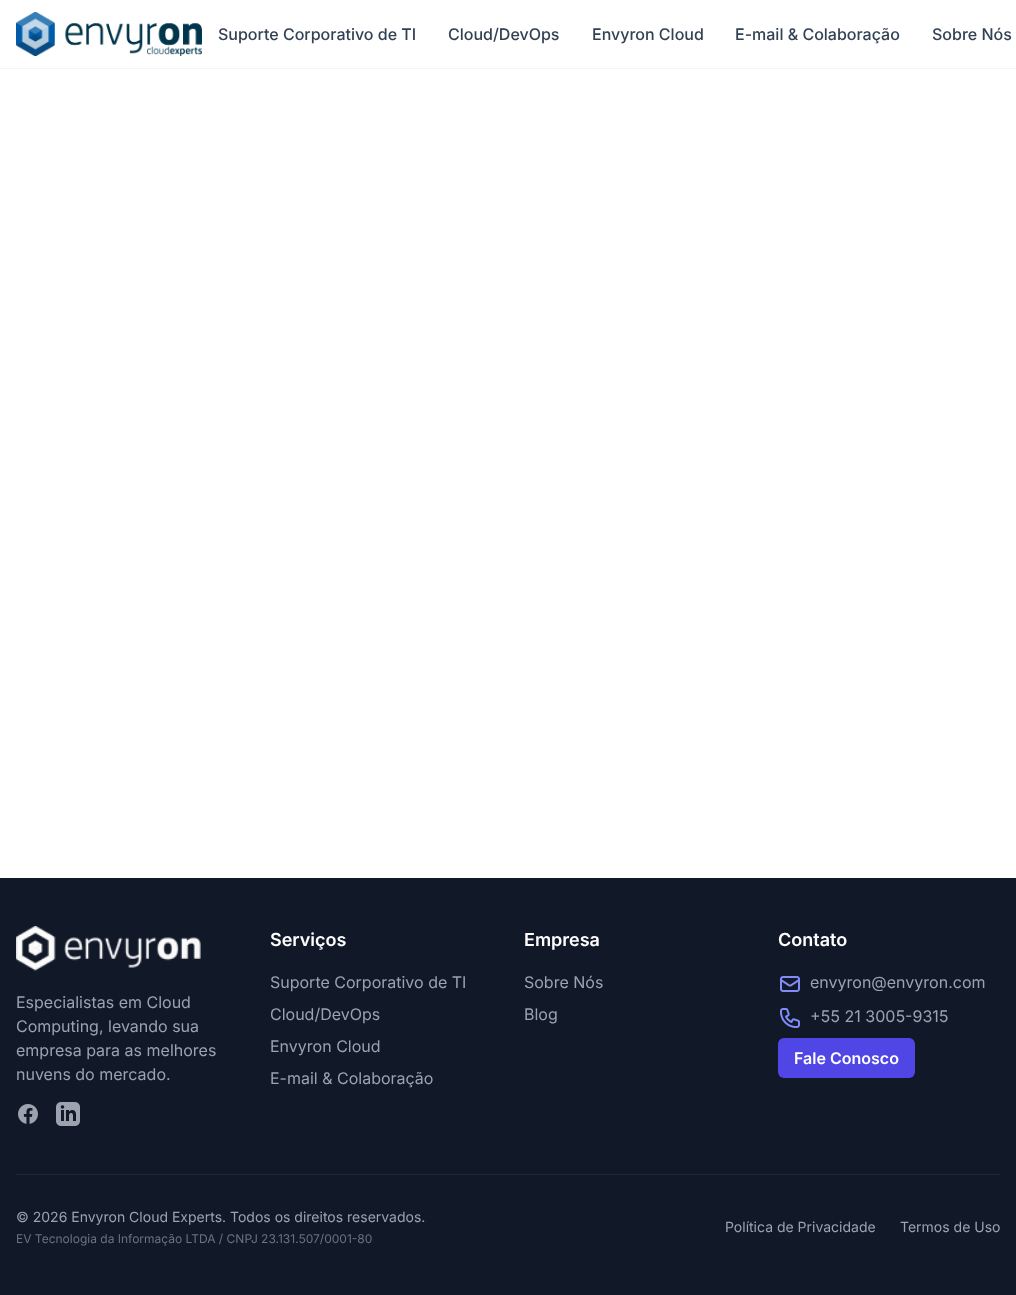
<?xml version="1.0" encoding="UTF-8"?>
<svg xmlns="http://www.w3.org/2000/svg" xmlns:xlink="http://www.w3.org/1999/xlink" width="1016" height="1295">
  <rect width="100%" height="100%" fill="#ffffff" />
  <rect y="68" width="1016" height="1" fill="#f3f4f6" />
  <image x="16" y="12" width="186" height="44" xlink:href="image1.png" />
  <rect y="878" width="1016" height="417" fill="#111827" />
  <image x="16" y="926" width="185" height="45" xlink:href="image2.png" />
  <image x="18" y="1104" width="20" height="20" xlink:href="image3.png" />
  <image x="56" y="1102" width="24" height="24" xlink:href="image4.png" />
  <image x="780" y="976" width="20" height="16" xlink:href="image5.png" />
  <image x="780" y="1008" width="20" height="20" xlink:href="image6.png" />
  <rect x="778" y="1038" width="137" height="40" rx="6" fill="#4f46e5" />
  <rect x="16" y="1174" width="984" height="1" fill="#1f2937" />
  <text x="218" y="40" style="font-family: Inter; font-size: 16px; font-weight: 500; fill: #334155">Suporte Corporativo de TI</text>
  <text x="448" y="40" style="font-family: Inter; font-size: 16px; font-weight: 500; fill: #334155">Cloud/DevOps</text>
  <text x="592" y="40" style="font-family: Inter; font-size: 16px; font-weight: 500; fill: #334155">Envyron Cloud</text>
  <text x="735" y="40" style="font-family: Inter; font-size: 16px; font-weight: 500; fill: #334155">E-mail &amp; Colaboração</text>
  <text x="932" y="40" style="font-family: Inter; font-size: 16px; font-weight: 500; fill: #334155">Sobre Nós</text>
  <text x="16" y="1008" style="font-family: Inter; font-size: 16px; fill: #9ca3af">Especialistas em Cloud</text>
  <text x="16" y="1032" style="font-family: Inter; font-size: 16px; fill: #9ca3af">Computing, levando sua</text>
  <text x="16" y="1056" style="font-family: Inter; font-size: 16px; fill: #9ca3af">empresa para as melhores</text>
  <text x="16" y="1080" style="font-family: Inter; font-size: 16px; fill: #9ca3af">nuvens do mercado.</text>
  <text x="270" y="946" style="font-family: Inter; font-size: 18px; font-weight: 600; fill: #ffffff">Serviços</text>
  <text x="270" y="988" style="font-family: Inter; font-size: 16px; fill: #9ca3af">Suporte Corporativo de TI</text>
  <text x="270" y="1020" style="font-family: Inter; font-size: 16px; fill: #9ca3af">Cloud/DevOps</text>
  <text x="270" y="1052" style="font-family: Inter; font-size: 16px; fill: #9ca3af">Envyron Cloud</text>
  <text x="270" y="1084" style="font-family: Inter; font-size: 16px; fill: #9ca3af">E-mail &amp; Colaboração</text>
  <text x="524" y="946" style="font-family: Inter; font-size: 18px; font-weight: 600; fill: #ffffff">Empresa</text>
  <text x="524" y="988" style="font-family: Inter; font-size: 16px; fill: #9ca3af">Sobre Nós</text>
  <text x="524" y="1020" style="font-family: Inter; font-size: 16px; fill: #9ca3af">Blog</text>
  <text x="778" y="946" style="font-family: Inter; font-size: 18px; font-weight: 600; fill: #ffffff">Contato</text>
  <text x="810" y="988" style="font-family: Inter; font-size: 16px; fill: #9ca3af">envyron@envyron.com</text>
  <text x="810" y="1022" style="font-family: Inter; font-size: 16px; fill: #9ca3af">+55 21 3005-9315</text>
  <text x="794" y="1064" style="font-family: Inter; font-size: 16px; font-weight: 600; fill: #ffffff">Fale Conosco</text>
  <text x="16" y="1222" style="font-family: Inter; font-size: 14px; fill: #9ca3af">© 2026 Envyron Cloud Experts. Todos os direitos reservados.</text>
  <text x="16" y="1243" style="font-family: Inter; font-size: 12px; fill: #6b7280">EV Tecnologia da Informação LTDA / CNPJ 23.131.507/0001-80</text>
  <text x="725" y="1232" style="font-family: Inter; font-size: 14px; fill: #9ca3af">Política de Privacidade</text>
  <text x="900" y="1232" style="font-family: Inter; font-size: 14px; fill: #9ca3af">Termos de Uso</text>
</svg>
